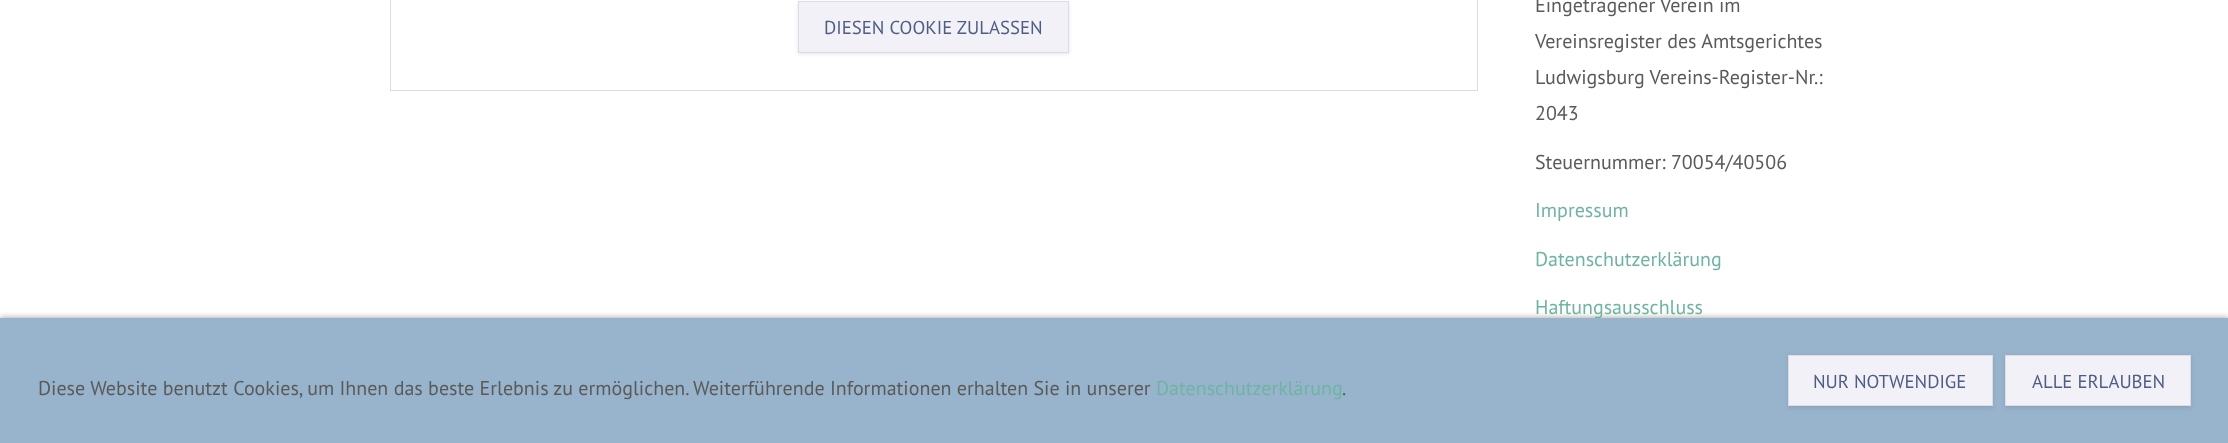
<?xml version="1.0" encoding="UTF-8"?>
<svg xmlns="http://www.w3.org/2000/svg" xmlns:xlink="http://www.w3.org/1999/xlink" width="2228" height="443">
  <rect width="100%" height="100%" fill="#ffffff" />
  <rect x="390.5" y="-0.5" width="1087" height="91" fill="none" stroke="#dbdce6" />
  <rect x="798" y="3" width="271" height="51" fill="#000000" fill-opacity="0.1" filter="blur(2px)" />
  <rect x="798.5" y="1.5" width="270" height="51" fill="#f1f1f7" stroke="#dbdce6" />
  <rect y="318" width="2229" height="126" fill="#000000" fill-opacity="0.4" filter="blur(3px)" />
  <text x="824" y="34" style="font-family: PT Sans; font-size: 18.75px; fill: #505d82">DIESEN COOKIE ZULASSEN</text>
  <text x="1535" y="12" style="font-family: PT Sans; font-size: 20px; fill: #5a5a5a">Eingetragener Verein im</text>
  <text x="1535" y="48" style="font-family: PT Sans; font-size: 20px; fill: #5a5a5a">Vereinsregister des Amtsgerichtes</text>
  <text x="1535" y="84" style="font-family: PT Sans; font-size: 20px; fill: #5a5a5a">Ludwigsburg Vereins-Register-Nr.:</text>
  <text x="1535" y="120" style="font-family: PT Sans; font-size: 20px; fill: #5a5a5a">2043</text>
  <text x="1535" y="169" style="font-family: PT Sans; font-size: 20px; fill: #5a5a5a">Steuernummer: 70054/40506</text>
  <text x="1535" y="217" style="font-family: PT Sans; font-size: 20px; fill: #6fb4a3">Impressum</text>
  <text x="1535" y="266" style="font-family: PT Sans; font-size: 20px; fill: #6fb4a3">Datenschutzerklärung</text>
  <text x="1535" y="314" style="font-family: PT Sans; font-size: 20px; fill: #6fb4a3">Haftungsausschluss</text>
  <rect y="318" width="2228" height="125" fill="#98b4cc" />
  <text x="38" y="395" style="font-family: PT Sans; font-size: 20px; fill: #5a5a5a">Diese Website benutzt Cookies, um Ihnen das beste Erlebnis zu ermöglichen. Weiterführende Informationen erhalten Sie in unserer</text>
  <text x="1156" y="395" style="font-family: PT Sans; font-size: 20px; fill: #6fb4a3">Datenschutzerklärung</text>
  <text x="1342" y="395" style="font-family: PT Sans; font-size: 20px; fill: #5a5a5a">.</text>
  <rect x="1788" y="356" width="205" height="52" fill="#000000" fill-opacity="0.1" filter="blur(2px)" />
  <rect x="1788.5" y="355.5" width="204" height="50" fill="#f1f1f7" stroke="#dbdce6" />
  <text x="1813" y="388" style="font-family: PT Sans; font-size: 18.75px; fill: #505d82">NUR NOTWENDIGE</text>
  <rect x="2005" y="356" width="186" height="52" fill="#000000" fill-opacity="0.1" filter="blur(2px)" />
  <rect x="2005.5" y="355.5" width="185" height="50" fill="#f1f1f7" stroke="#dbdce6" />
  <text x="2032" y="388" style="font-family: PT Sans; font-size: 18.75px; fill: #505d82">ALLE ERLAUBEN</text>
</svg>
